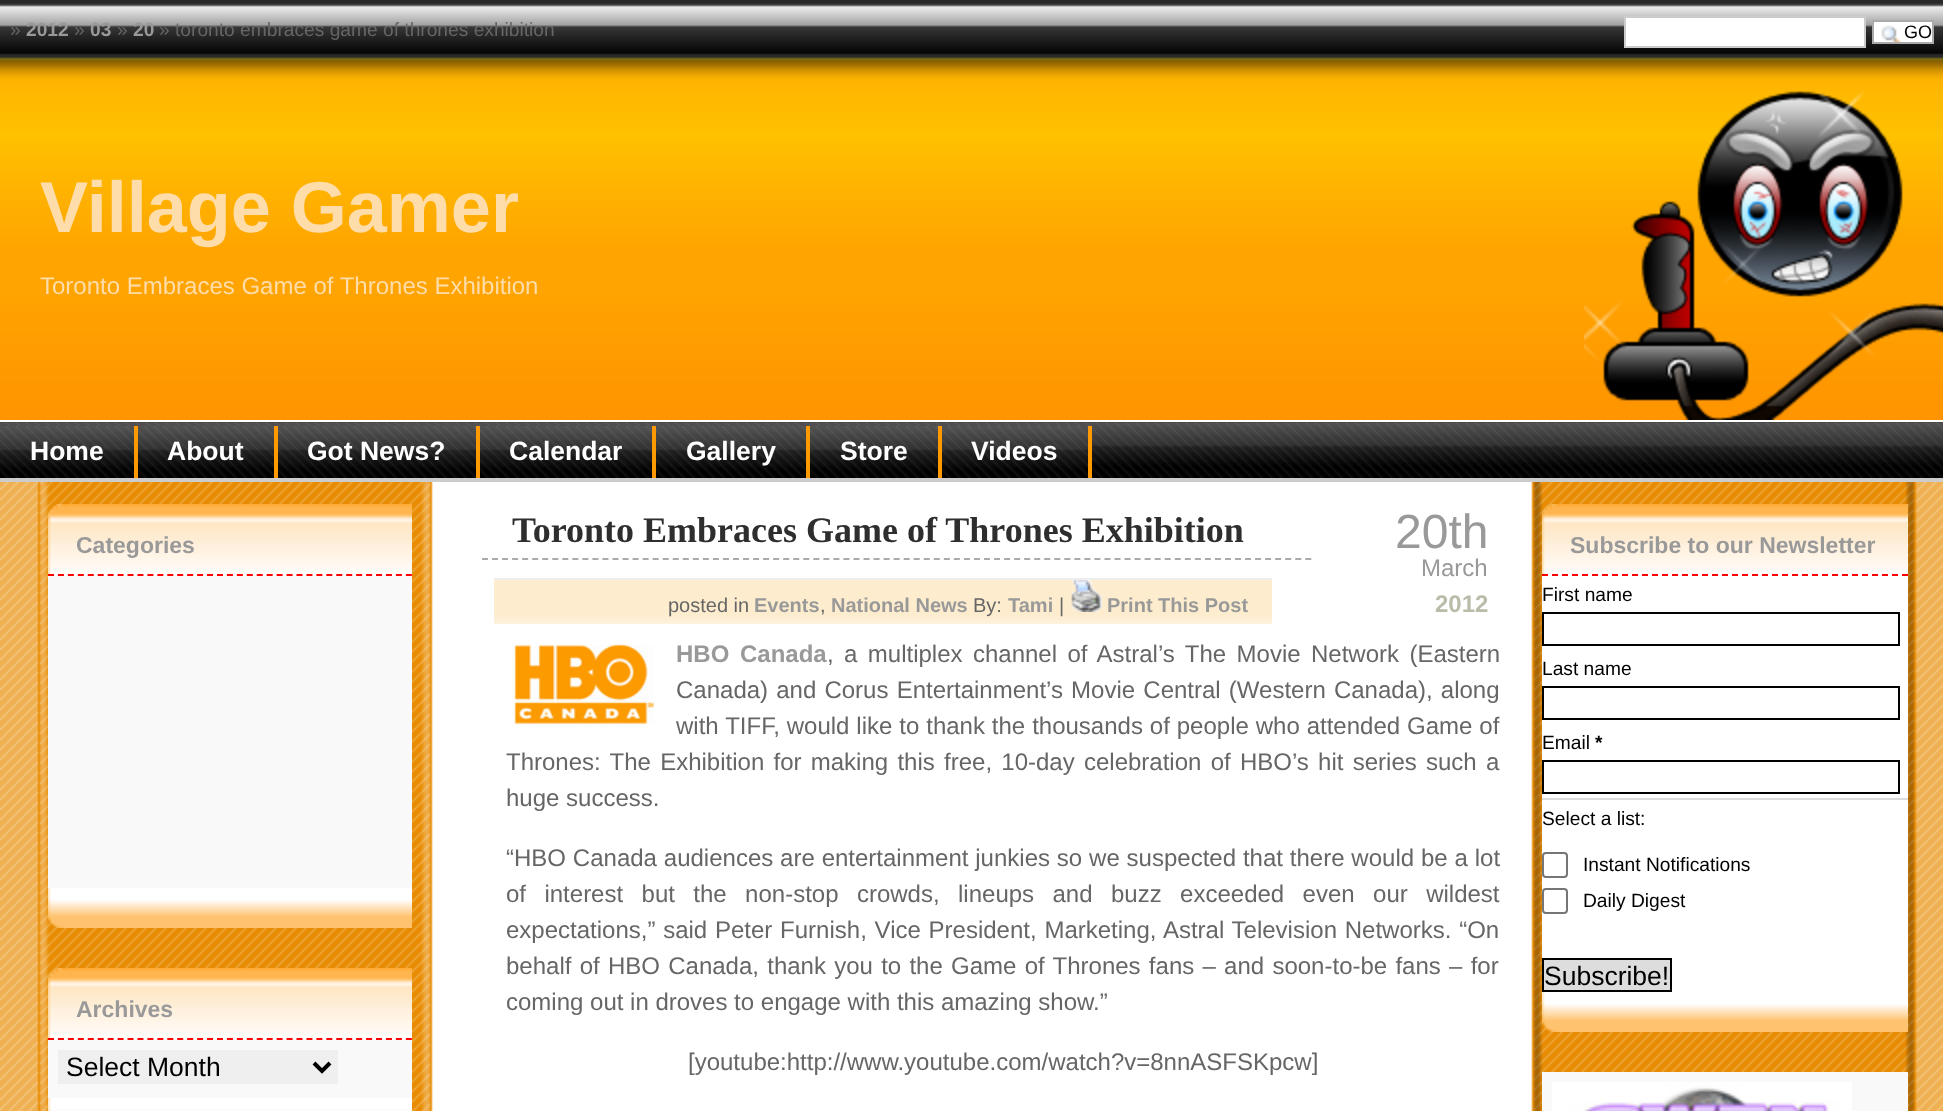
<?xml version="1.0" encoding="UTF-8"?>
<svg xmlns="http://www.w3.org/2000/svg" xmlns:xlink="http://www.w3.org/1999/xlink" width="1943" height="1111">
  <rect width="100%" height="100%" fill="#ffffff" />
  <image x="0" y="482" width="433" height="629" xlink:href="image1.png" />
  <image x="0" y="0" width="1943" height="420" xlink:href="image3.png" />
  <rect x="1625" y="17" width="240" height="30" fill="#ffffff" stroke="#cccccc" stroke-width="2" />
  <rect x="1874" y="22" width="58" height="20" fill="#ffffff" />
  <image x="1881" y="25" width="22" height="17" xlink:href="image2.png" />
  <rect x="1873" y="21" width="60" height="22" fill="none" stroke="#aaaaaa" stroke-width="2" />
  <image x="1584" y="91" width="359" height="329" xlink:href="image4.png" />
  <image x="0" y="422" width="1943" height="56" xlink:href="image5.png" />
  <rect y="478" width="1943" height="4" fill="#cccccc" />
  <image x="0" y="426" width="134" height="52" xlink:href="image6.png" />
  <rect x="134" y="426" width="4" height="52" fill="#ff9900" />
  <image x="138" y="426" width="136" height="52" xlink:href="image7.png" />
  <rect x="274" y="426" width="4" height="52" fill="#ff9900" />
  <image x="278" y="426" width="198" height="52" xlink:href="image8.png" />
  <rect x="476" y="426" width="4" height="52" fill="#ff9900" />
  <image x="480" y="426" width="172" height="52" xlink:href="image9.png" />
  <rect x="652" y="426" width="4" height="52" fill="#ff9900" />
  <image x="656" y="426" width="150" height="52" xlink:href="image10.png" />
  <rect x="806" y="426" width="4" height="52" fill="#ff9900" />
  <image x="810" y="426" width="128" height="52" xlink:href="image11.png" />
  <rect x="938" y="426" width="4" height="52" fill="#ff9900" />
  <image x="942" y="426" width="146" height="52" xlink:href="image12.png" />
  <rect x="1088" y="426" width="4" height="52" fill="#ff9900" />
  <image x="1531" y="482" width="412" height="629" xlink:href="image13.png" />
  <image x="48" y="888" width="364" height="40" xlink:href="image14.png" />
  <image x="48" y="504" width="364" height="72" xlink:href="image15.png" />
  <path d="M 48 575 h 364" fill="none" stroke="#ff0000" stroke-width="2" stroke-dasharray="6 3.94" />
  <rect x="48" y="576" width="364" height="312" fill="#f9f9f9" />
  <image x="48" y="1098" width="364" height="13" xlink:href="image16.png" />
  <image x="48" y="968" width="364" height="72" xlink:href="image17.png" />
  <path d="M 48 1039 h 364" fill="none" stroke="#ff0000" stroke-width="2" stroke-dasharray="6 3.94" />
  <rect x="48" y="1040" width="364" height="58" fill="#f9f9f9" />
  <rect x="58" y="1050" width="280" height="34" fill="#efefef" />
  <path d="M 314 1063 l 8 8 l 8 -8" fill="none" stroke="#000000" stroke-width="4" />
  <path d="M 482 559 h 830" fill="none" stroke="#aaaaaa" stroke-width="2" stroke-dasharray="6 4.04" />
  <image x="494" y="580" width="778" height="44" xlink:href="image18.png" />
  <rect x="494" y="578" width="778" height="2" fill="#eeeeee" />
  <image x="1071" y="580" width="31" height="32" xlink:href="image19.png" />
  <image x="514" y="644" width="140" height="80" xlink:href="image20.png" />
  <image x="1542" y="992" width="366" height="40" xlink:href="image21.png" />
  <image x="1542" y="504" width="366" height="72" xlink:href="image22.png" />
  <path d="M 1542 575 h 366" fill="none" stroke="#ff0000" stroke-width="2" stroke-dasharray="6 4" />
  <rect x="1542" y="576" width="366" height="416" fill="#ffffff" />
  <rect x="1543" y="613" width="356" height="32" fill="none" stroke="#000000" stroke-width="2" />
  <rect x="1543" y="687" width="356" height="32" fill="none" stroke="#000000" stroke-width="2" />
  <rect x="1543" y="761" width="356" height="32" fill="none" stroke="#000000" stroke-width="2" />
  <rect x="1542" y="798" width="366" height="2" fill="#dddddd" />
  <rect x="1543" y="853" width="24" height="24" rx="3" fill="none" stroke="#767676" stroke-width="2" />
  <rect x="1543" y="889" width="24" height="24" rx="3" fill="none" stroke="#767676" stroke-width="2" />
  <rect x="1543" y="959" width="128" height="32" fill="#dddddd" stroke="#000000" stroke-width="2" />
  <rect x="1542" y="1072" width="366" height="39" fill="#f9f9f9" />
  <image x="1552" y="1082" width="300" height="29" xlink:href="image23.png" />
  <text x="10" y="36" style="font-family: Liberation Sans; font-size: 19.2px; fill: #666666">»</text>
  <text x="26" y="36" style="font-family: Liberation Sans; font-size: 19.2px; font-weight: bold; fill: #999999">2012</text>
  <text x="74" y="36" style="font-family: Liberation Sans; font-size: 19.2px; fill: #666666">»</text>
  <text x="90" y="36" style="font-family: Liberation Sans; font-size: 19.2px; font-weight: bold; fill: #999999">03</text>
  <text x="117" y="36" style="font-family: Liberation Sans; font-size: 19.2px; fill: #666666">»</text>
  <text x="133" y="36" style="font-family: Liberation Sans; font-size: 19.2px; font-weight: bold; fill: #999999">20</text>
  <text x="159" y="36" style="font-family: Liberation Sans; font-size: 19.2px; fill: #666666">» toronto embraces game of thrones exhibition</text>
  <text x="1904" y="38" style="font-family: Liberation Sans; font-size: 18px; fill: #000000">GO</text>
  <text x="40" y="232" style="font-family: Liberation Sans; font-size: 72px; font-weight: bold; fill: #ffddaa">Village Gamer</text>
  <text x="40" y="294" style="font-family: Liberation Sans; font-size: 24px; fill: #ffddaa">Toronto Embraces Game of Thrones Exhibition</text>
  <text x="30" y="460" style="font-family: Liberation Sans; font-size: 26.5px; font-weight: bold; fill: #ffffff">Home</text>
  <text x="167" y="460" style="font-family: Liberation Sans; font-size: 26.5px; font-weight: bold; fill: #ffffff">About</text>
  <text x="307" y="460" style="font-family: Liberation Sans; font-size: 26.5px; font-weight: bold; fill: #ffffff">Got News?</text>
  <text x="509" y="460" style="font-family: Liberation Sans; font-size: 26.5px; font-weight: bold; fill: #ffffff">Calendar</text>
  <text x="686" y="460" style="font-family: Liberation Sans; font-size: 26.5px; font-weight: bold; fill: #ffffff">Gallery</text>
  <text x="840" y="460" style="font-family: Liberation Sans; font-size: 26.5px; font-weight: bold; fill: #ffffff">Store</text>
  <text x="971" y="460" style="font-family: Liberation Sans; font-size: 26.5px; font-weight: bold; fill: #ffffff">Videos</text>
  <text x="76" y="553" style="font-family: Liberation Sans; font-size: 23px; font-weight: bold; fill: #999999">Categories</text>
  <text x="76" y="1017" style="font-family: Liberation Sans; font-size: 23px; font-weight: bold; fill: #999999">Archives</text>
  <text x="66" y="1076" style="font-family: Liberation Sans; font-size: 26.5px; fill: #000000">Select Month</text>
  <text x="512" y="542" style="font-family: Liberation Serif; font-size: 36px; font-weight: bold; fill: #2e2e2e">Toronto Embraces Game of Thrones Exhibition</text>
  <text x="1395" y="548" style="font-family: Liberation Sans; font-size: 48px; fill: #999999">20th</text>
  <text x="1421" y="576" style="font-family: Liberation Sans; font-size: 24px; fill: #999999">March</text>
  <text x="1435" y="612" style="font-family: Liberation Sans; font-size: 24px; font-weight: bold; fill: #bbbbaa">2012</text>
  <text x="668" y="612" style="font-family: Liberation Sans; font-size: 20px; fill: #666666">posted in</text>
  <text x="754" y="612" style="font-family: Liberation Sans; font-size: 20px; font-weight: bold; fill: #999999">Events</text>
  <text x="820" y="612" style="font-family: Liberation Sans; font-size: 20px; fill: #666666">,</text>
  <text x="831" y="612" style="font-family: Liberation Sans; font-size: 20px; font-weight: bold; fill: #999999">National News</text>
  <text x="973" y="612" style="font-family: Liberation Sans; font-size: 20px; fill: #666666">By:</text>
  <text x="1008" y="612" style="font-family: Liberation Sans; font-size: 20px; font-weight: bold; fill: #999999">Tami</text>
  <text x="1059" y="612" style="font-family: Liberation Sans; font-size: 20px; fill: #666666">|</text>
  <text x="1107" y="612" style="font-family: Liberation Sans; font-size: 20px; font-weight: bold; fill: #999999">Print This Post</text>
  <text x="676" y="662" word-spacing="4" style="font-family: Liberation Sans; font-size: 24px; font-weight: bold; fill: #999999">HBO Canada</text>
  <text x="827" y="662" word-spacing="3.75" style="font-family: Liberation Sans; font-size: 24px; fill: #666666">, a multiplex channel of Astral’s The Movie Network (Eastern</text>
  <text x="676" y="698" word-spacing="1.5" style="font-family: Liberation Sans; font-size: 24px; fill: #666666">Canada) and Corus Entertainment’s Movie Central (Western Canada), along</text>
  <text x="676" y="734" word-spacing="0.25" style="font-family: Liberation Sans; font-size: 24px; fill: #666666">with TIFF, would like to thank the thousands of people who attended Game of</text>
  <text x="506" y="770" word-spacing="2.6" style="font-family: Liberation Sans; font-size: 24px; fill: #666666">Thrones: The Exhibition for making this free, 10-day celebration of HBO’s hit series such a</text>
  <text x="506" y="806" style="font-family: Liberation Sans; font-size: 24px; fill: #666666">huge success.</text>
  <text x="506" y="866" word-spacing="0.2" style="font-family: Liberation Sans; font-size: 24px; fill: #666666">“HBO Canada audiences are entertainment junkies so we suspected that there would be a lot</text>
  <text x="506" y="902" word-spacing="11.75" style="font-family: Liberation Sans; font-size: 24px; fill: #666666">of interest but the non-stop crowds, lineups and buzz exceeded even our wildest</text>
  <text x="506" y="938" word-spacing="1.1" style="font-family: Liberation Sans; font-size: 24px; fill: #666666">expectations,” said Peter Furnish, Vice President, Marketing, Astral Television Networks. “On</text>
  <text x="506" y="974" word-spacing="1.6" style="font-family: Liberation Sans; font-size: 24px; fill: #666666">behalf of HBO Canada, thank you to the Game of Thrones fans – and soon-to-be fans – for</text>
  <text x="506" y="1010" style="font-family: Liberation Sans; font-size: 24px; fill: #666666">coming out in droves to engage with this amazing show.”</text>
  <text x="688" y="1070" style="font-family: Liberation Sans; font-size: 24px; fill: #666666">[youtube:http://www.youtube.com/watch?v=8nnASFSKpcw]</text>
  <text x="1570" y="553" style="font-family: Liberation Sans; font-size: 23px; font-weight: bold; fill: #999999">Subscribe to our Newsletter</text>
  <text x="1542" y="601" style="font-family: Liberation Sans; font-size: 19.2px; fill: #000000">First name</text>
  <text x="1542" y="675" style="font-family: Liberation Sans; font-size: 19.2px; fill: #000000">Last name</text>
  <text x="1542" y="749" style="font-family: Liberation Sans; font-size: 19.2px; fill: #000000">Email</text>
  <text x="1595" y="749" style="font-family: Liberation Sans; font-size: 19.2px; font-weight: bold; fill: #000000">*</text>
  <text x="1542" y="825" style="font-family: Liberation Sans; font-size: 19.2px; fill: #000000">Select a list:</text>
  <text x="1583" y="871" style="font-family: Liberation Sans; font-size: 19.2px; fill: #000000">Instant Notifications</text>
  <text x="1583" y="907" style="font-family: Liberation Sans; font-size: 19.2px; fill: #000000">Daily Digest</text>
  <text x="1544" y="985" style="font-family: Liberation Sans; font-size: 26.5px; fill: #000000">Subscribe!</text>
</svg>
